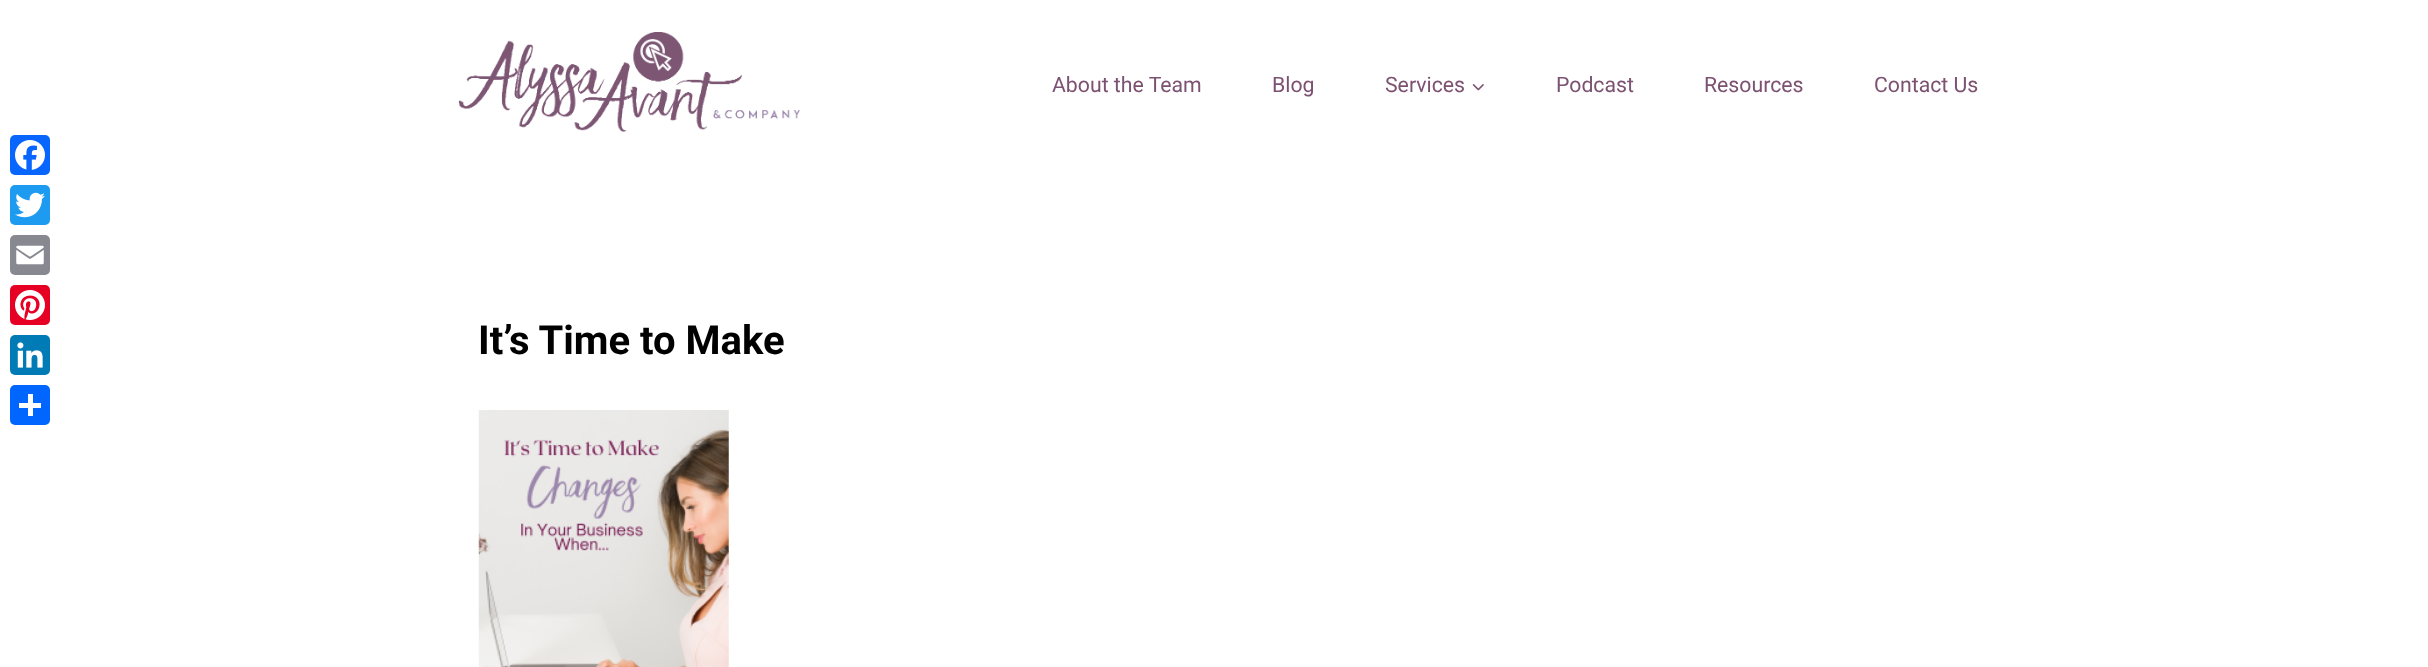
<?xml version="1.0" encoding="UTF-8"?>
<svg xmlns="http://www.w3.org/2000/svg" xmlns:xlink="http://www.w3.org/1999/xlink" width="2428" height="667">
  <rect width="100%" height="100%" fill="#ffffff" />
  <rect x="10" y="135" width="40" height="40" rx="5" fill="#0866ff" />
  <image x="15" y="140" width="30" height="30" xlink:href="image1.png" />
  <rect x="10" y="185" width="40" height="40" rx="5" fill="#1d9bf0" />
  <image x="15" y="192" width="30" height="26" xlink:href="image2.png" />
  <rect x="10" y="235" width="40" height="40" rx="5" fill="#888990" />
  <image x="16" y="245" width="28" height="20" xlink:href="image3.png" />
  <rect x="10" y="285" width="40" height="40" rx="5" fill="#e60023" />
  <image x="15" y="290" width="30" height="30" xlink:href="image4.png" />
  <rect x="10" y="335" width="40" height="40" rx="5" fill="#007bb5" />
  <image x="17" y="342" width="26" height="26" xlink:href="image5.png" />
  <rect x="10" y="385" width="40" height="40" rx="5" fill="#0166ff" />
  <rect x="28" y="394" width="5" height="22" fill="#ffffff" />
  <rect x="19" y="403" width="22" height="5" fill="#ffffff" />
  <image x="458" y="32" width="342" height="100" xlink:href="image6.png" />
  <image x="1472" y="84" width="12" height="7" xlink:href="image7.png" />
  <image x="478" y="410" width="251" height="257" xlink:href="image8.png" />
  <text x="1052" y="92" style="font-family: Roboto; font-size: 21.25px; fill: #7c5171">About the Team</text>
  <text x="1272" y="92" style="font-family: Roboto; font-size: 21.25px; fill: #7c5171">Blog</text>
  <text x="1385" y="92" style="font-family: Roboto; font-size: 21.25px; fill: #7c5171">Services</text>
  <text x="1556" y="92" style="font-family: Roboto; font-size: 21.25px; fill: #7c5171">Podcast</text>
  <text x="1704" y="92" style="font-family: Roboto; font-size: 21.25px; fill: #7c5171">Resources</text>
  <text x="1874" y="92" style="font-family: Roboto; font-size: 21.25px; fill: #7c5171">Contact Us</text>
  <text x="478" y="354" style="font-family: Roboto; font-size: 40px; font-weight: bold; fill: #000000">It’s Time to Make</text>
</svg>
